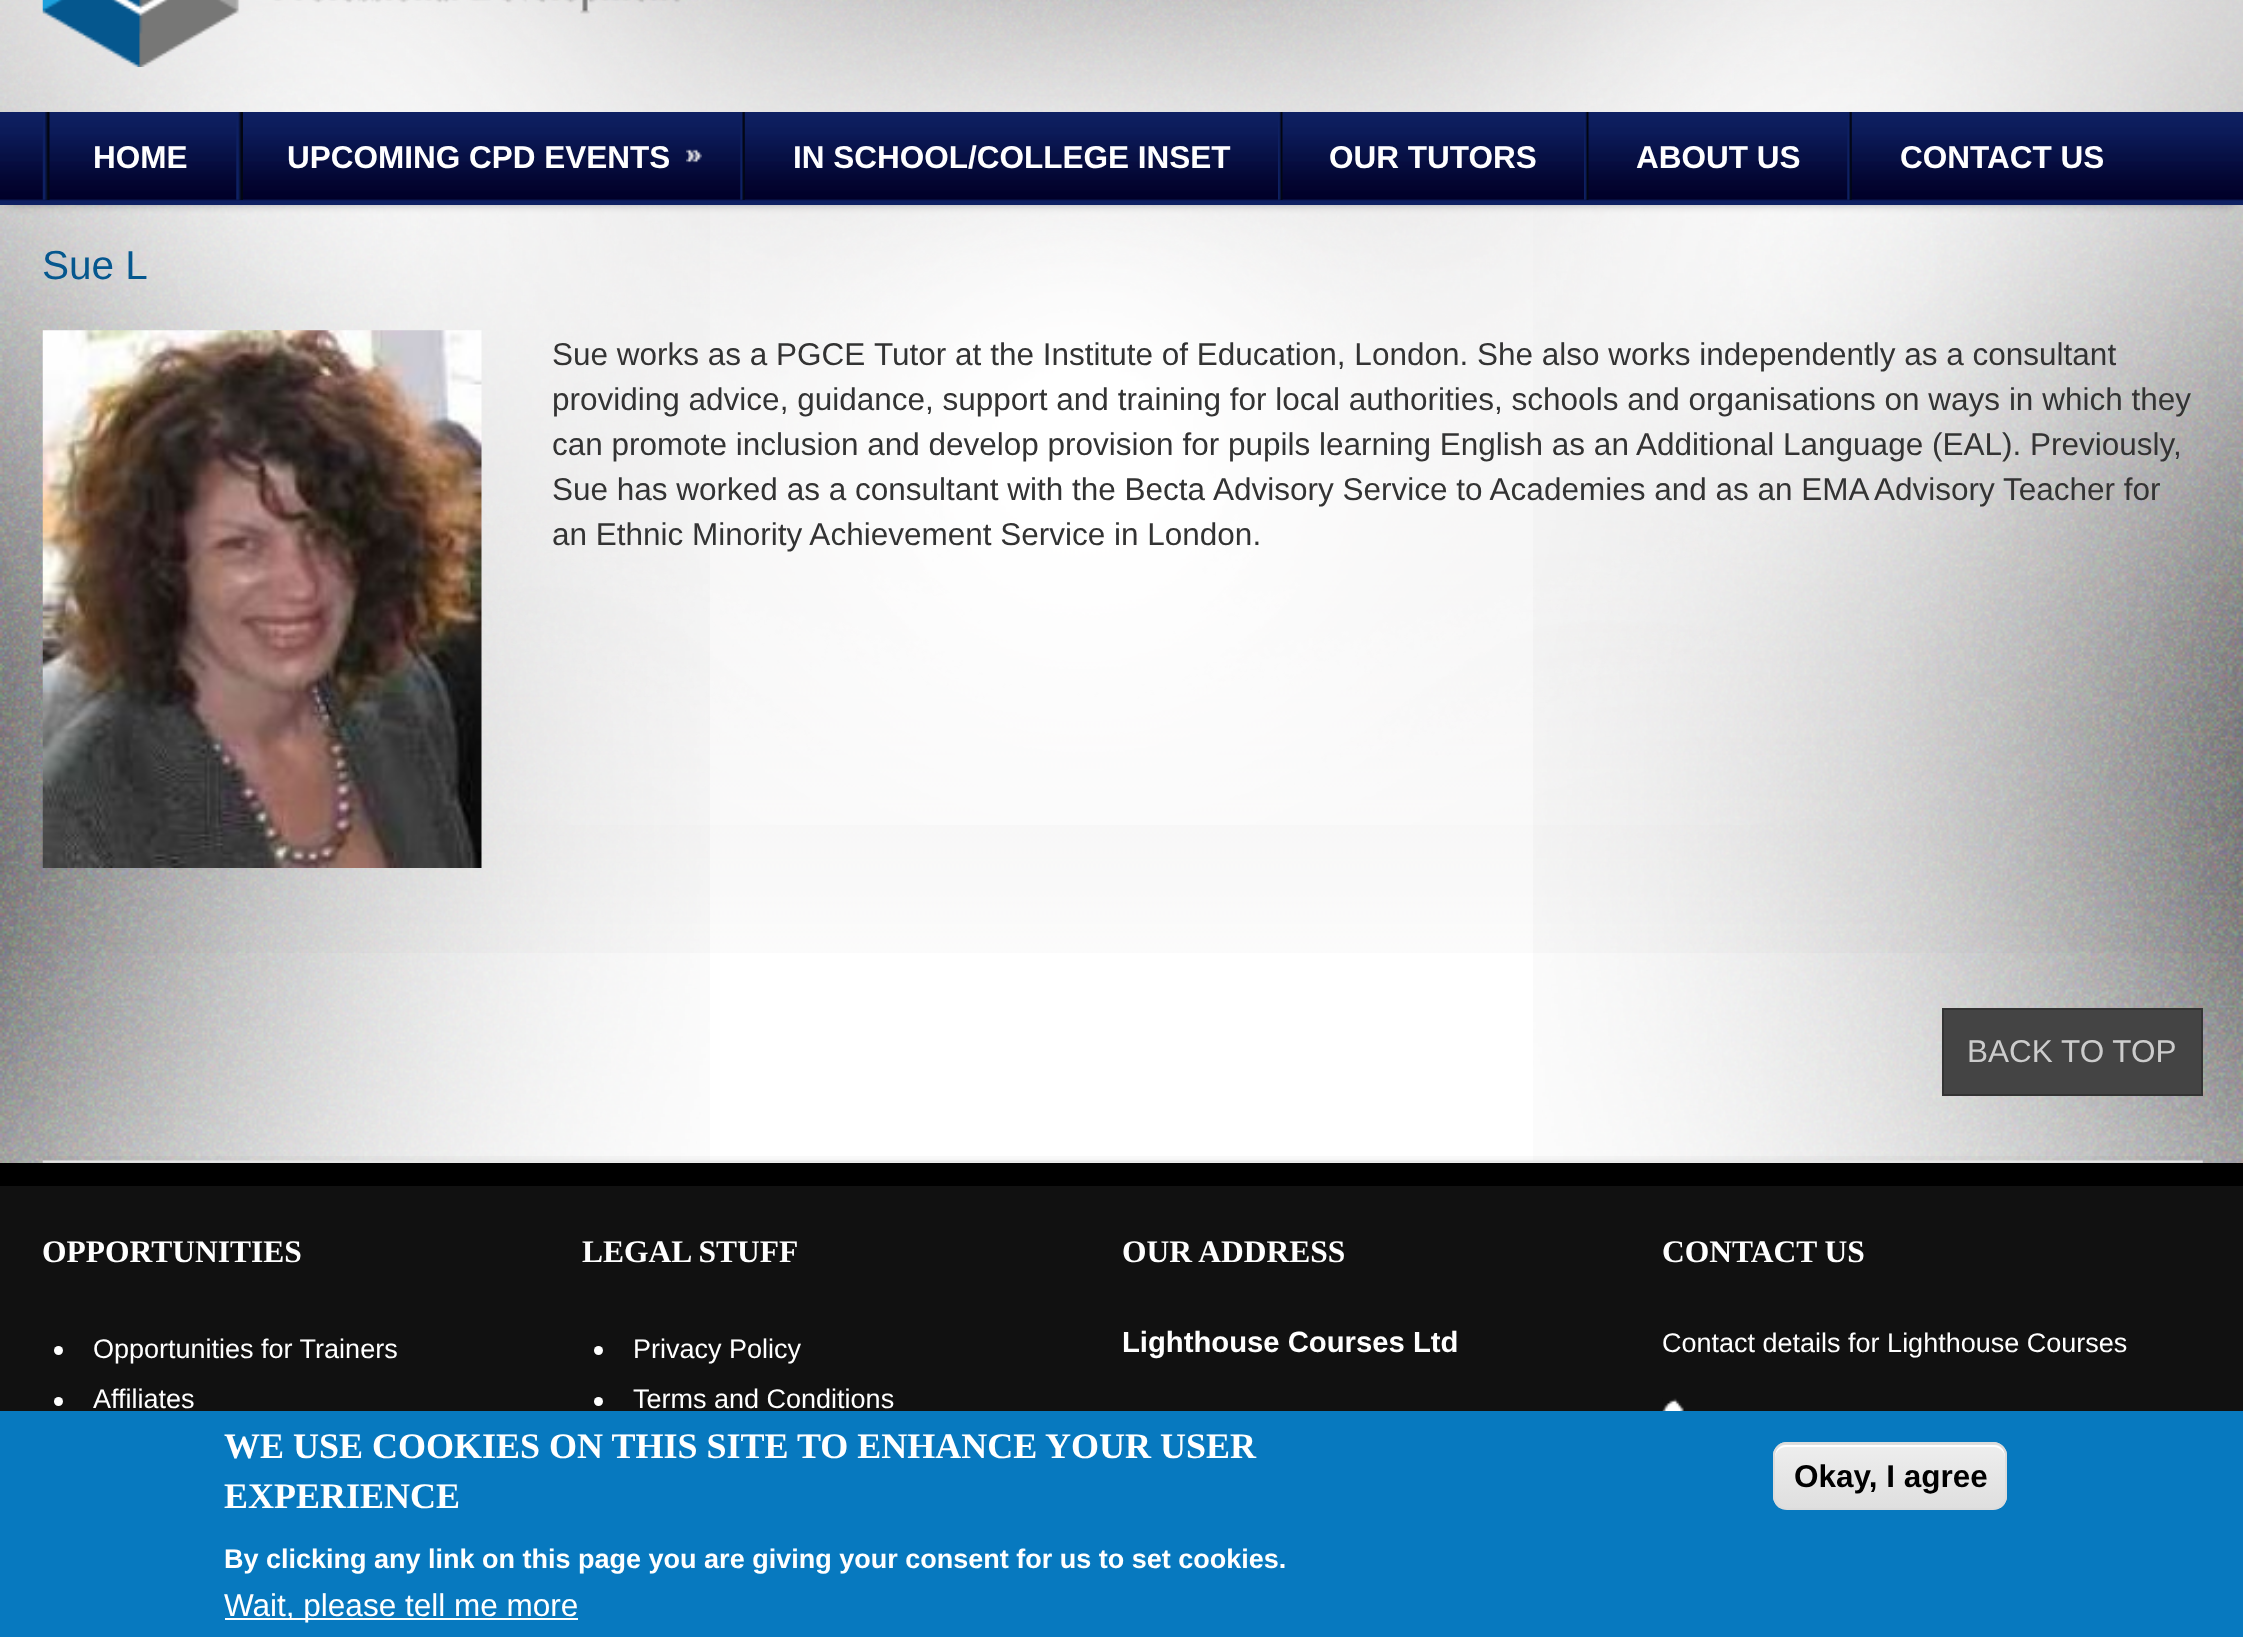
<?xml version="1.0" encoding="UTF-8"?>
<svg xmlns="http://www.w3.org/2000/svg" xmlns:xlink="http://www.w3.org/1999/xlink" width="2243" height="1637">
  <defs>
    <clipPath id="clip1"><rect x="1773" y="1442" width="234" height="68" rx="14" /></clipPath>
    <linearGradient id="g1" gradientUnits="userSpaceOnUse" x1="1890" y1="1382" x2="1890" y2="1445"><stop offset="0.05" stop-color="#ededed" /><stop offset="1" stop-color="#dfdfdf" /></linearGradient>
    <linearGradient id="g2" gradientUnits="userSpaceOnUse" x1="1890" y1="1445" x2="1890" y2="1508"><stop offset="0.05" stop-color="#ededed" /><stop offset="1" stop-color="#dfdfdf" /></linearGradient>
  </defs>
  <rect width="100%" height="100%" fill="#ffffff" />
  <image x="0" y="0" width="2243" height="953" xlink:href="image1.png" />
  <image x="0" y="0" width="2243" height="825" xlink:href="image2.png" />
  <image x="0" y="0" width="710" height="1163" xlink:href="image3.png" />
  <image x="1533" y="0" width="710" height="1163" xlink:href="image4.png" />
  <image x="42" y="0" width="639" height="67" xlink:href="image5.png" />
  <rect x="9" y="131" width="2225" height="74" fill="#000000" fill-opacity="0.25" filter="blur(4.5px)" />
  <rect y="201" width="2243" height="4" fill="#0e2062" />
  <image x="0" y="112" width="2243" height="89" xlink:href="image6.png" />
  <image x="42" y="112" width="8" height="88" xlink:href="image7.png" />
  <image x="236" y="112" width="7" height="88" xlink:href="image8.png" />
  <image x="686" y="149" width="16" height="14" xlink:href="image9.png" />
  <image x="740" y="112" width="5" height="88" xlink:href="image10.png" />
  <image x="1278" y="112" width="5" height="88" xlink:href="image11.png" />
  <image x="1584" y="112" width="5" height="88" xlink:href="image11.png" />
  <image x="1847" y="112" width="5" height="88" xlink:href="image12.png" />
  <image x="42" y="1156" width="2161" height="7" xlink:href="image13.png" />
  <image x="42" y="330" width="440" height="538" xlink:href="image14.png" />
  <rect x="1943" y="1009" width="259" height="86" fill="#444444" stroke="#333333" stroke-width="2" />
  <rect y="1186" width="2243" height="225" fill="#111111" />
  <rect y="1163" width="2243" height="23" fill="#000000" />
  <circle cx="58.5" cy="1350.5" r="4.5" fill="#ffffff" />
  <circle cx="58.5" cy="1401.5" r="4.5" fill="#ffffff" />
  <circle cx="598.5" cy="1350.5" r="4.5" fill="#ffffff" />
  <circle cx="598.5" cy="1401.5" r="4.5" fill="#ffffff" />
  <image x="1662" y="1398" width="69" height="13" xlink:href="image15.png" />
  <rect y="1411" width="2243" height="226" fill="#0779bf" />
  <rect x="225" y="1618" width="353" height="2" fill="#ffffff" />
  <g clip-path="url(#clip1)">
    <rect x="1773" y="1442" width="234" height="3" fill="url(#g1)" />
    <rect x="1773" y="1445" width="234" height="63" fill="url(#g2)" />
  </g>
  <path d="M 1786 1447 h 208 c 6 0 11 5 11 11 v -2 c 0 -6 -5 -11 -11 -11 h -208 c -6 0 -11 5 -11 11 v 2 c 0 -6 5 -11 11 -11 z" fill="#ffffff" />
  <rect x="1774" y="1443" width="232" height="66" rx="13" fill="none" stroke="#dcdcdc" stroke-width="2" />
  <text x="93" y="168" style="font-family: Liberation Sans; font-size: 31.5px; font-weight: bold; fill: #ffffff">HOME</text>
  <text x="287" y="168" style="font-family: Liberation Sans; font-size: 31.5px; font-weight: bold; fill: #ffffff">UPCOMING CPD EVENTS</text>
  <text x="793" y="168" style="font-family: Liberation Sans; font-size: 31.5px; font-weight: bold; fill: #ffffff">IN SCHOOL/COLLEGE INSET</text>
  <text x="1329" y="168" style="font-family: Liberation Sans; font-size: 31.5px; font-weight: bold; fill: #ffffff">OUR TUTORS</text>
  <text x="1636" y="168" style="font-family: Liberation Sans; font-size: 31.5px; font-weight: bold; fill: #ffffff">ABOUT US</text>
  <text x="1900" y="168" style="font-family: Liberation Sans; font-size: 31.5px; font-weight: bold; fill: #ffffff">CONTACT US</text>
  <text x="42" y="279" style="font-family: Liberation Sans; font-size: 40.5px; fill: #05578e">Sue L</text>
  <text x="552" y="365" style="font-family: Liberation Sans; font-size: 31.5px; fill: #333333">Sue works as a PGCE</text>
  <text x="874" y="365" style="font-family: Liberation Sans; font-size: 31.5px; fill: #333333">Tutor at the Institute of Education, London. She also works independently as a consultant</text>
  <text x="552" y="410" style="font-family: Liberation Sans; font-size: 31.5px; fill: #333333">providing advice, guidance, support and training for local authorities, schools and organisations on ways in which they</text>
  <text x="552" y="455" style="font-family: Liberation Sans; font-size: 31.5px; fill: #333333">can promote inclusion and develop provision for pupils learning English as an Additional Language (EAL). Previously,</text>
  <text x="552" y="500" style="font-family: Liberation Sans; font-size: 31.5px; fill: #333333">Sue has worked as a consultant with the Becta</text>
  <text x="1213" y="500" style="font-family: Liberation Sans; font-size: 31.5px; fill: #333333">Advisory Service to Academies and as an EMA</text>
  <text x="1874" y="500" style="font-family: Liberation Sans; font-size: 31.5px; fill: #333333">Advisory Teacher for</text>
  <text x="552" y="545" style="font-family: Liberation Sans; font-size: 31.5px; fill: #333333">an Ethnic Minority Achievement Service in London.</text>
  <text x="1967" y="1062" style="font-family: Liberation Sans; font-size: 31.5px; fill: #cccccc">BACK TO TOP</text>
  <text x="42" y="1262" style="font-family: Liberation Serif; font-size: 31.5px; font-weight: bold; fill: #ffffff">OPPORTUNITIES</text>
  <text x="93" y="1358" style="font-family: Liberation Sans; font-size: 27px; fill: #ffffff">Opportunities for Trainers</text>
  <text x="93" y="1408" style="font-family: Liberation Sans; font-size: 27px; fill: #ffffff">Affiliates</text>
  <text x="582" y="1262" style="font-family: Liberation Serif; font-size: 31.5px; font-weight: bold; fill: #ffffff">LEGAL STUFF</text>
  <text x="633" y="1358" style="font-family: Liberation Sans; font-size: 27px; fill: #ffffff">Privacy Policy</text>
  <text x="633" y="1408" style="font-family: Liberation Sans; font-size: 27px; fill: #ffffff">Terms and Conditions</text>
  <text x="1122" y="1262" style="font-family: Liberation Serif; font-size: 31.5px; font-weight: bold; fill: #ffffff">OUR ADDRESS</text>
  <text x="1122" y="1352" style="font-family: Liberation Sans; font-size: 29.25px; font-weight: bold; fill: #ffffff">Lighthouse Courses Ltd</text>
  <text x="1662" y="1262" style="font-family: Liberation Serif; font-size: 31.5px; font-weight: bold; fill: #ffffff">CONTACT US</text>
  <text x="1662" y="1352" style="font-family: Liberation Sans; font-size: 27px; fill: #ffffff">Contact details for Lighthouse Courses</text>
  <text x="224" y="1458" style="font-family: Liberation Serif; font-size: 36px; font-weight: bold; fill: #ffffff">WE USE COOKIES ON THIS SITE TO ENHANCE YOUR USER</text>
  <text x="224" y="1508" style="font-family: Liberation Serif; font-size: 36px; font-weight: bold; fill: #ffffff">EXPERIENCE</text>
  <text x="224" y="1568" style="font-family: Liberation Sans; font-size: 27px; font-weight: bold; fill: #ffffff">By clicking any link on this page you are giving your consent for us to set cookies.</text>
  <text x="224" y="1616" style="font-family: Liberation Sans; font-size: 31.5px; fill: #ffffff">Wait, please tell me more</text>
  <text x="1794" y="1487" style="font-family: Liberation Sans; font-size: 31.5px; font-weight: bold; fill: #000000">Okay, I agree</text>
</svg>
